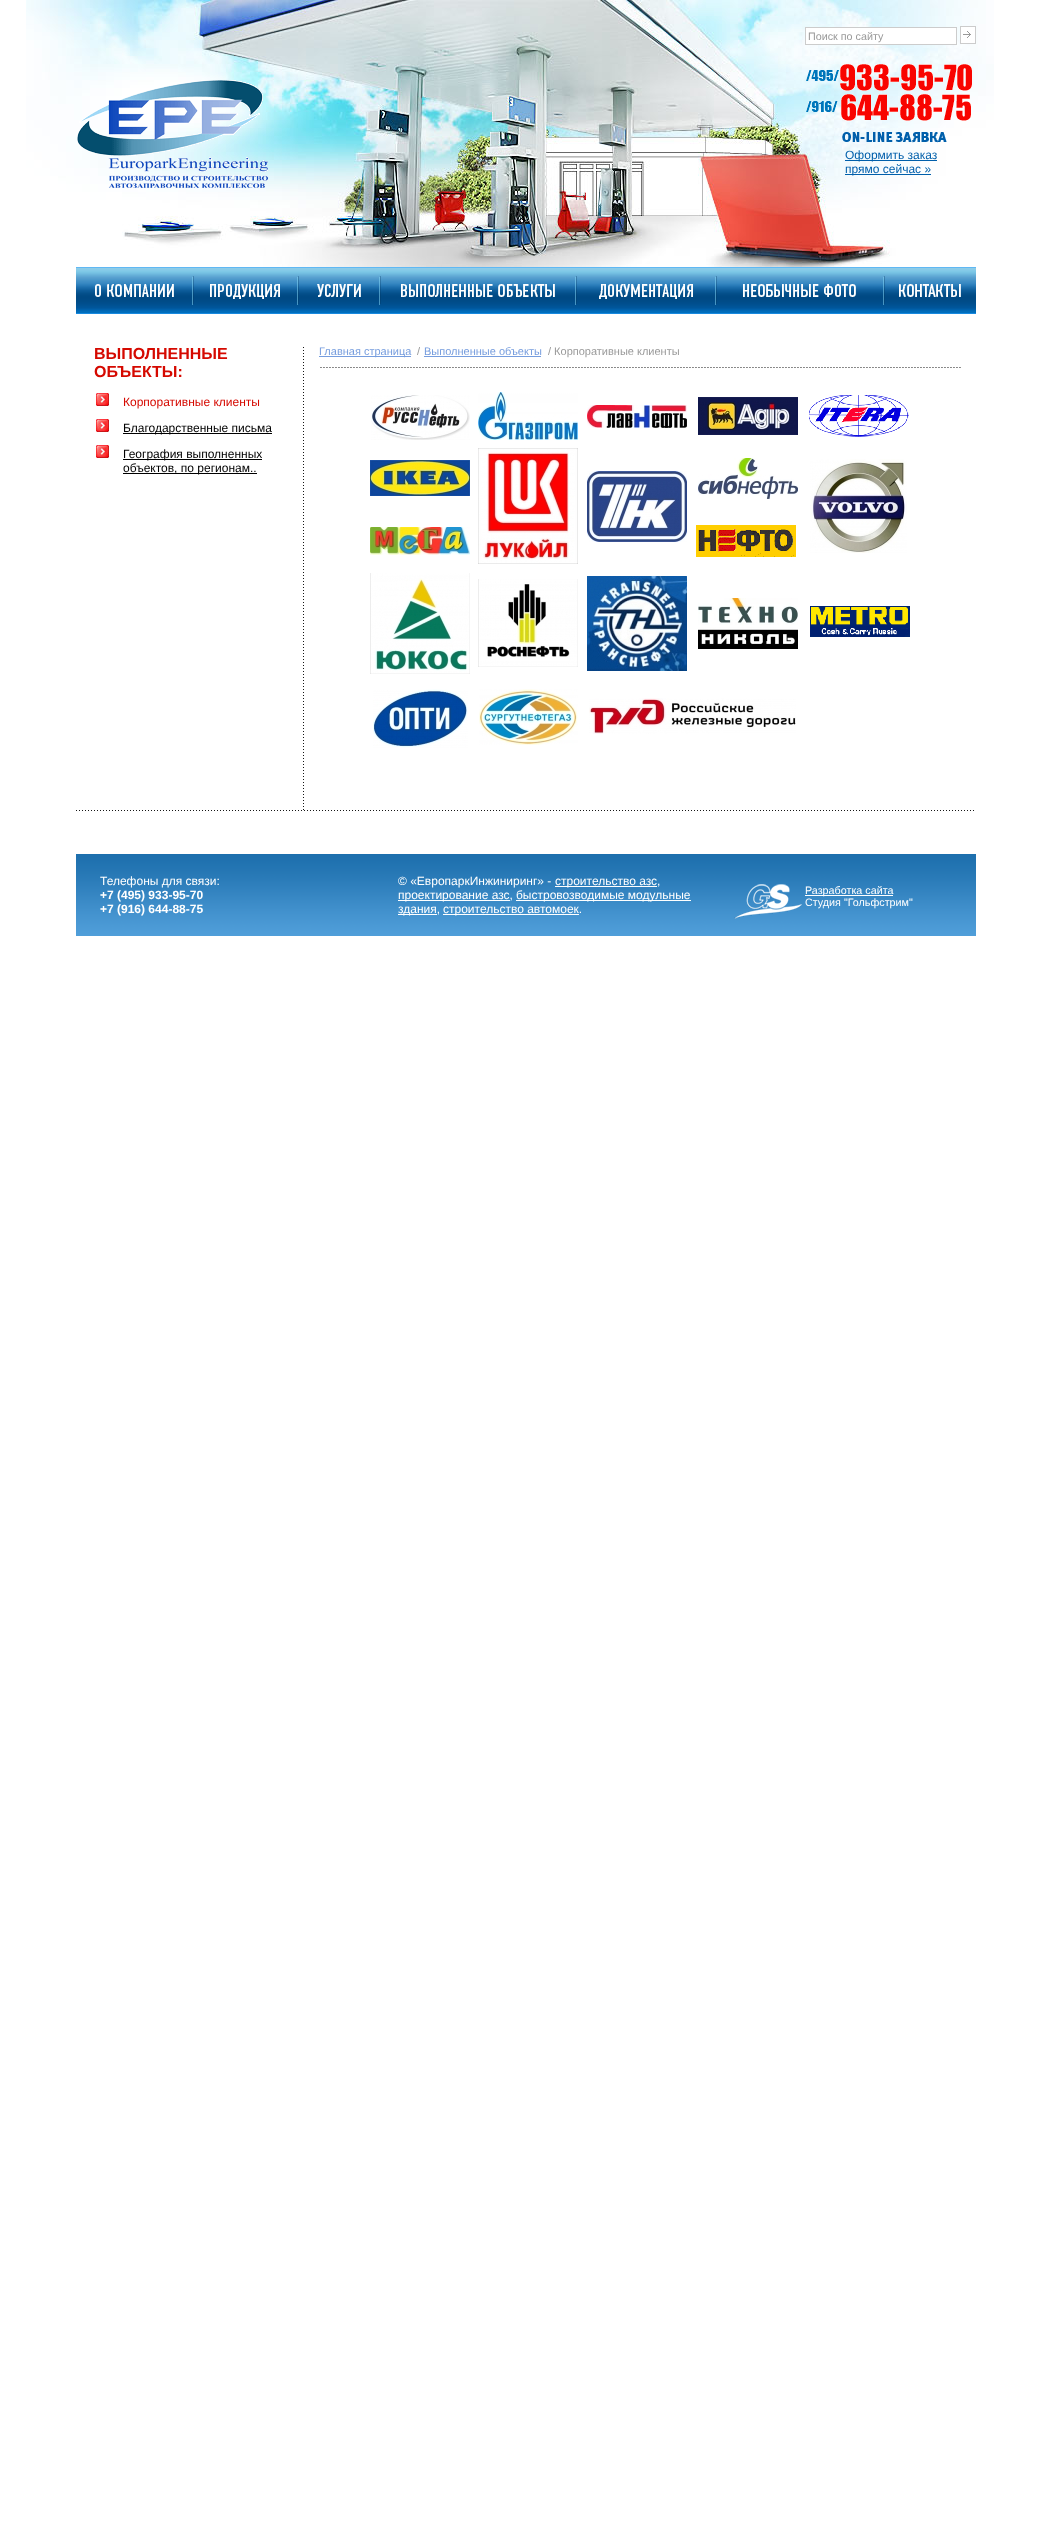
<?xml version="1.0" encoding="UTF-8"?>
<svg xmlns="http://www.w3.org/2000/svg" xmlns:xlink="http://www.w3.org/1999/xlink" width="1052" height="2535">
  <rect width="100%" height="100%" fill="#ffffff" />
  <image x="26" y="0" width="968" height="267" xlink:href="image1.png" />
  <image x="77" y="80" width="191" height="108" xlink:href="image2.png" />
  <rect x="805.5" y="27.5" width="151" height="17" fill="#ffffff" stroke="#cccccc" />
  <rect x="961" y="27" width="14" height="16" fill="#ffffff" />
  <image x="963" y="31" width="8" height="7" xlink:href="image3.png" />
  <rect x="960.5" y="26.5" width="15" height="17" fill="none" stroke="#cccccc" />
  <image x="806" y="64" width="166" height="57" xlink:href="image4.png" />
  <image x="842" y="132" width="105" height="11" xlink:href="image5.png" />
  <rect x="845" y="160" width="92" height="1" fill="#005fab" />
  <rect x="845" y="174" width="86" height="1" fill="#005fab" />
  <image x="76" y="267" width="116" height="47" xlink:href="image6.png" />
  <image x="95" y="284" width="79" height="13" xlink:href="image7.png" />
  <image x="192" y="267" width="2" height="47" xlink:href="image8.png" />
  <image x="194" y="267" width="103" height="47" xlink:href="image9.png" />
  <image x="210" y="284" width="70" height="15" xlink:href="image10.png" />
  <image x="297" y="267" width="2" height="47" xlink:href="image8.png" />
  <image x="299" y="267" width="80" height="47" xlink:href="image11.png" />
  <image x="317" y="284" width="44" height="13" xlink:href="image12.png" />
  <image x="379" y="267" width="2" height="47" xlink:href="image8.png" />
  <image x="381" y="267" width="194" height="47" xlink:href="image13.png" />
  <image x="401" y="284" width="154" height="13" xlink:href="image14.png" />
  <image x="575" y="267" width="2" height="47" xlink:href="image8.png" />
  <image x="577" y="267" width="138" height="47" xlink:href="image15.png" />
  <image x="599" y="284" width="94" height="15" xlink:href="image16.png" />
  <image x="715" y="267" width="2" height="47" xlink:href="image8.png" />
  <image x="717" y="267" width="166" height="47" xlink:href="image17.png" />
  <image x="743" y="284" width="113" height="13" xlink:href="image18.png" />
  <image x="883" y="267" width="2" height="47" xlink:href="image8.png" />
  <image x="885" y="267" width="91" height="47" xlink:href="image19.png" />
  <image x="899" y="284" width="62" height="13" xlink:href="image20.png" />
  <image x="96" y="393" width="13" height="13" xlink:href="image21.png" />
  <image x="96" y="419" width="13" height="13" xlink:href="image21.png" />
  <rect x="123" y="433" width="149" height="1" fill="#000000" />
  <image x="96" y="445" width="13" height="13" xlink:href="image21.png" />
  <rect x="123" y="459" width="139" height="1" fill="#000000" />
  <rect x="123" y="473" width="134" height="1" fill="#000000" />
  <image x="303" y="347" width="1" height="463" xlink:href="image22.png" />
  <rect x="319" y="356" width="92" height="1" fill="#769dde" />
  <rect x="424" y="356" width="117" height="1" fill="#769dde" />
  <image x="320" y="367" width="641" height="1" xlink:href="image23.png" />
  <image x="371" y="395" width="99" height="45" xlink:href="image24.png" />
  <image x="478" y="392" width="100" height="48" xlink:href="image25.png" />
  <image x="587" y="405" width="100" height="23" xlink:href="image26.png" />
  <image x="698" y="397" width="100" height="38" xlink:href="image27.png" />
  <image x="809" y="395" width="100" height="42" xlink:href="image28.png" />
  <image x="370" y="460" width="100" height="36" xlink:href="image29.png" />
  <image x="478" y="448" width="100" height="116" xlink:href="image30.png" />
  <image x="587" y="471" width="100" height="71" xlink:href="image31.png" />
  <image x="698" y="458" width="100" height="41" xlink:href="image32.png" />
  <image x="810" y="459" width="97" height="94" xlink:href="image33.png" />
  <image x="370" y="527" width="100" height="28" xlink:href="image34.png" />
  <image x="696" y="525" width="100" height="32" xlink:href="image35.png" />
  <image x="370" y="573" width="100" height="101" xlink:href="image36.png" />
  <image x="478" y="579" width="100" height="88" xlink:href="image37.png" />
  <image x="587" y="576" width="100" height="95" xlink:href="image38.png" />
  <image x="698" y="598" width="100" height="51" xlink:href="image39.png" />
  <image x="810" y="606" width="100" height="31" xlink:href="image40.png" />
  <image x="373" y="689" width="95" height="59" xlink:href="image41.png" />
  <image x="479" y="689" width="99" height="56" xlink:href="image42.png" />
  <image x="589" y="698" width="207" height="36" xlink:href="image43.png" />
  <image x="76" y="810" width="898" height="1" xlink:href="image44.png" />
  <image x="76" y="854" width="900" height="82" xlink:href="image45.png" />
  <rect x="555" y="886" width="102" height="1" fill="#ffffff" />
  <rect x="398" y="900" width="112" height="1" fill="#ffffff" />
  <rect x="516" y="900" width="175" height="1" fill="#ffffff" />
  <rect x="398" y="914" width="39" height="1" fill="#ffffff" />
  <rect x="443" y="914" width="136" height="1" fill="#ffffff" />
  <image x="734" y="884" width="68" height="35" xlink:href="image46.png" />
  <rect x="805" y="895" width="88" height="1" fill="#ffffff" />
  <text x="808" y="40" style="font-family: Liberation Sans; font-size: 10.75px; fill: #999999">Поиск по сайту</text>
  <text x="845" y="159" style="font-family: Liberation Sans; font-size: 12px; fill: #005fab">Оформить заказ</text>
  <text x="845" y="173" style="font-family: Liberation Sans; font-size: 12px; fill: #005fab">прямо сейчас »</text>
  <text x="94" y="359" style="font-family: Liberation Sans; font-size: 16px; font-weight: bold; fill: #d50900">ВЫПОЛНЕННЫЕ</text>
  <text x="94" y="377" style="font-family: Liberation Sans; font-size: 16px; font-weight: bold; fill: #d50900">ОБЪЕКТЫ:</text>
  <text x="123" y="406" style="font-family: Liberation Sans; font-size: 12px; fill: #d50900">Корпоративные клиенты</text>
  <text x="123" y="432" style="font-family: Liberation Sans; font-size: 12px; fill: #000000">Благодарственные письма</text>
  <text x="123" y="458" style="font-family: Liberation Sans; font-size: 12px; fill: #000000">География выполненных</text>
  <text x="123" y="472" style="font-family: Liberation Sans; font-size: 12px; fill: #000000">объектов, по регионам..</text>
  <text x="319" y="355" style="font-family: Liberation Sans; font-size: 11px; fill: #769dde">Главная страница</text>
  <text x="417" y="355" style="font-family: Liberation Sans; font-size: 11px; fill: #999999">/</text>
  <text x="424" y="355" style="font-family: Liberation Sans; font-size: 11px; fill: #769dde">Выполненные объекты</text>
  <text x="548" y="355" style="font-family: Liberation Sans; font-size: 11px; fill: #999999">/ Корпоративные клиенты</text>
  <text x="100" y="885" style="font-family: Liberation Sans; font-size: 12px; fill: #ffffff">Телефоны для связи:</text>
  <text x="100" y="899" style="font-family: Liberation Sans; font-size: 12px; font-weight: bold; fill: #ffffff">+7 (495) 933-95-70</text>
  <text x="100" y="913" style="font-family: Liberation Sans; font-size: 12px; font-weight: bold; fill: #ffffff">+7 (916) 644-88-75</text>
  <text x="398" y="885" style="font-family: Liberation Sans; font-size: 12px; fill: #ffffff">© «ЕвропаркИнжиниринг» -</text>
  <text x="555" y="885" style="font-family: Liberation Sans; font-size: 12px; fill: #ffffff">строительство азс,</text>
  <text x="398" y="899" style="font-family: Liberation Sans; font-size: 12px; fill: #ffffff">проектирование азс,</text>
  <text x="516" y="899" style="font-family: Liberation Sans; font-size: 12px; fill: #ffffff">быстровозводимые модульные</text>
  <text x="398" y="913" style="font-family: Liberation Sans; font-size: 12px; fill: #ffffff">здания,</text>
  <text x="443" y="913" style="font-family: Liberation Sans; font-size: 12px; fill: #ffffff">строительство автомоек.</text>
  <text x="805" y="894" style="font-family: Liberation Sans; font-size: 10.75px; fill: #ffffff">Разработка сайта</text>
  <text x="805" y="906" style="font-family: Liberation Sans; font-size: 10.75px; fill: #ffffff">Студия "Гольфстрим"</text>
</svg>
